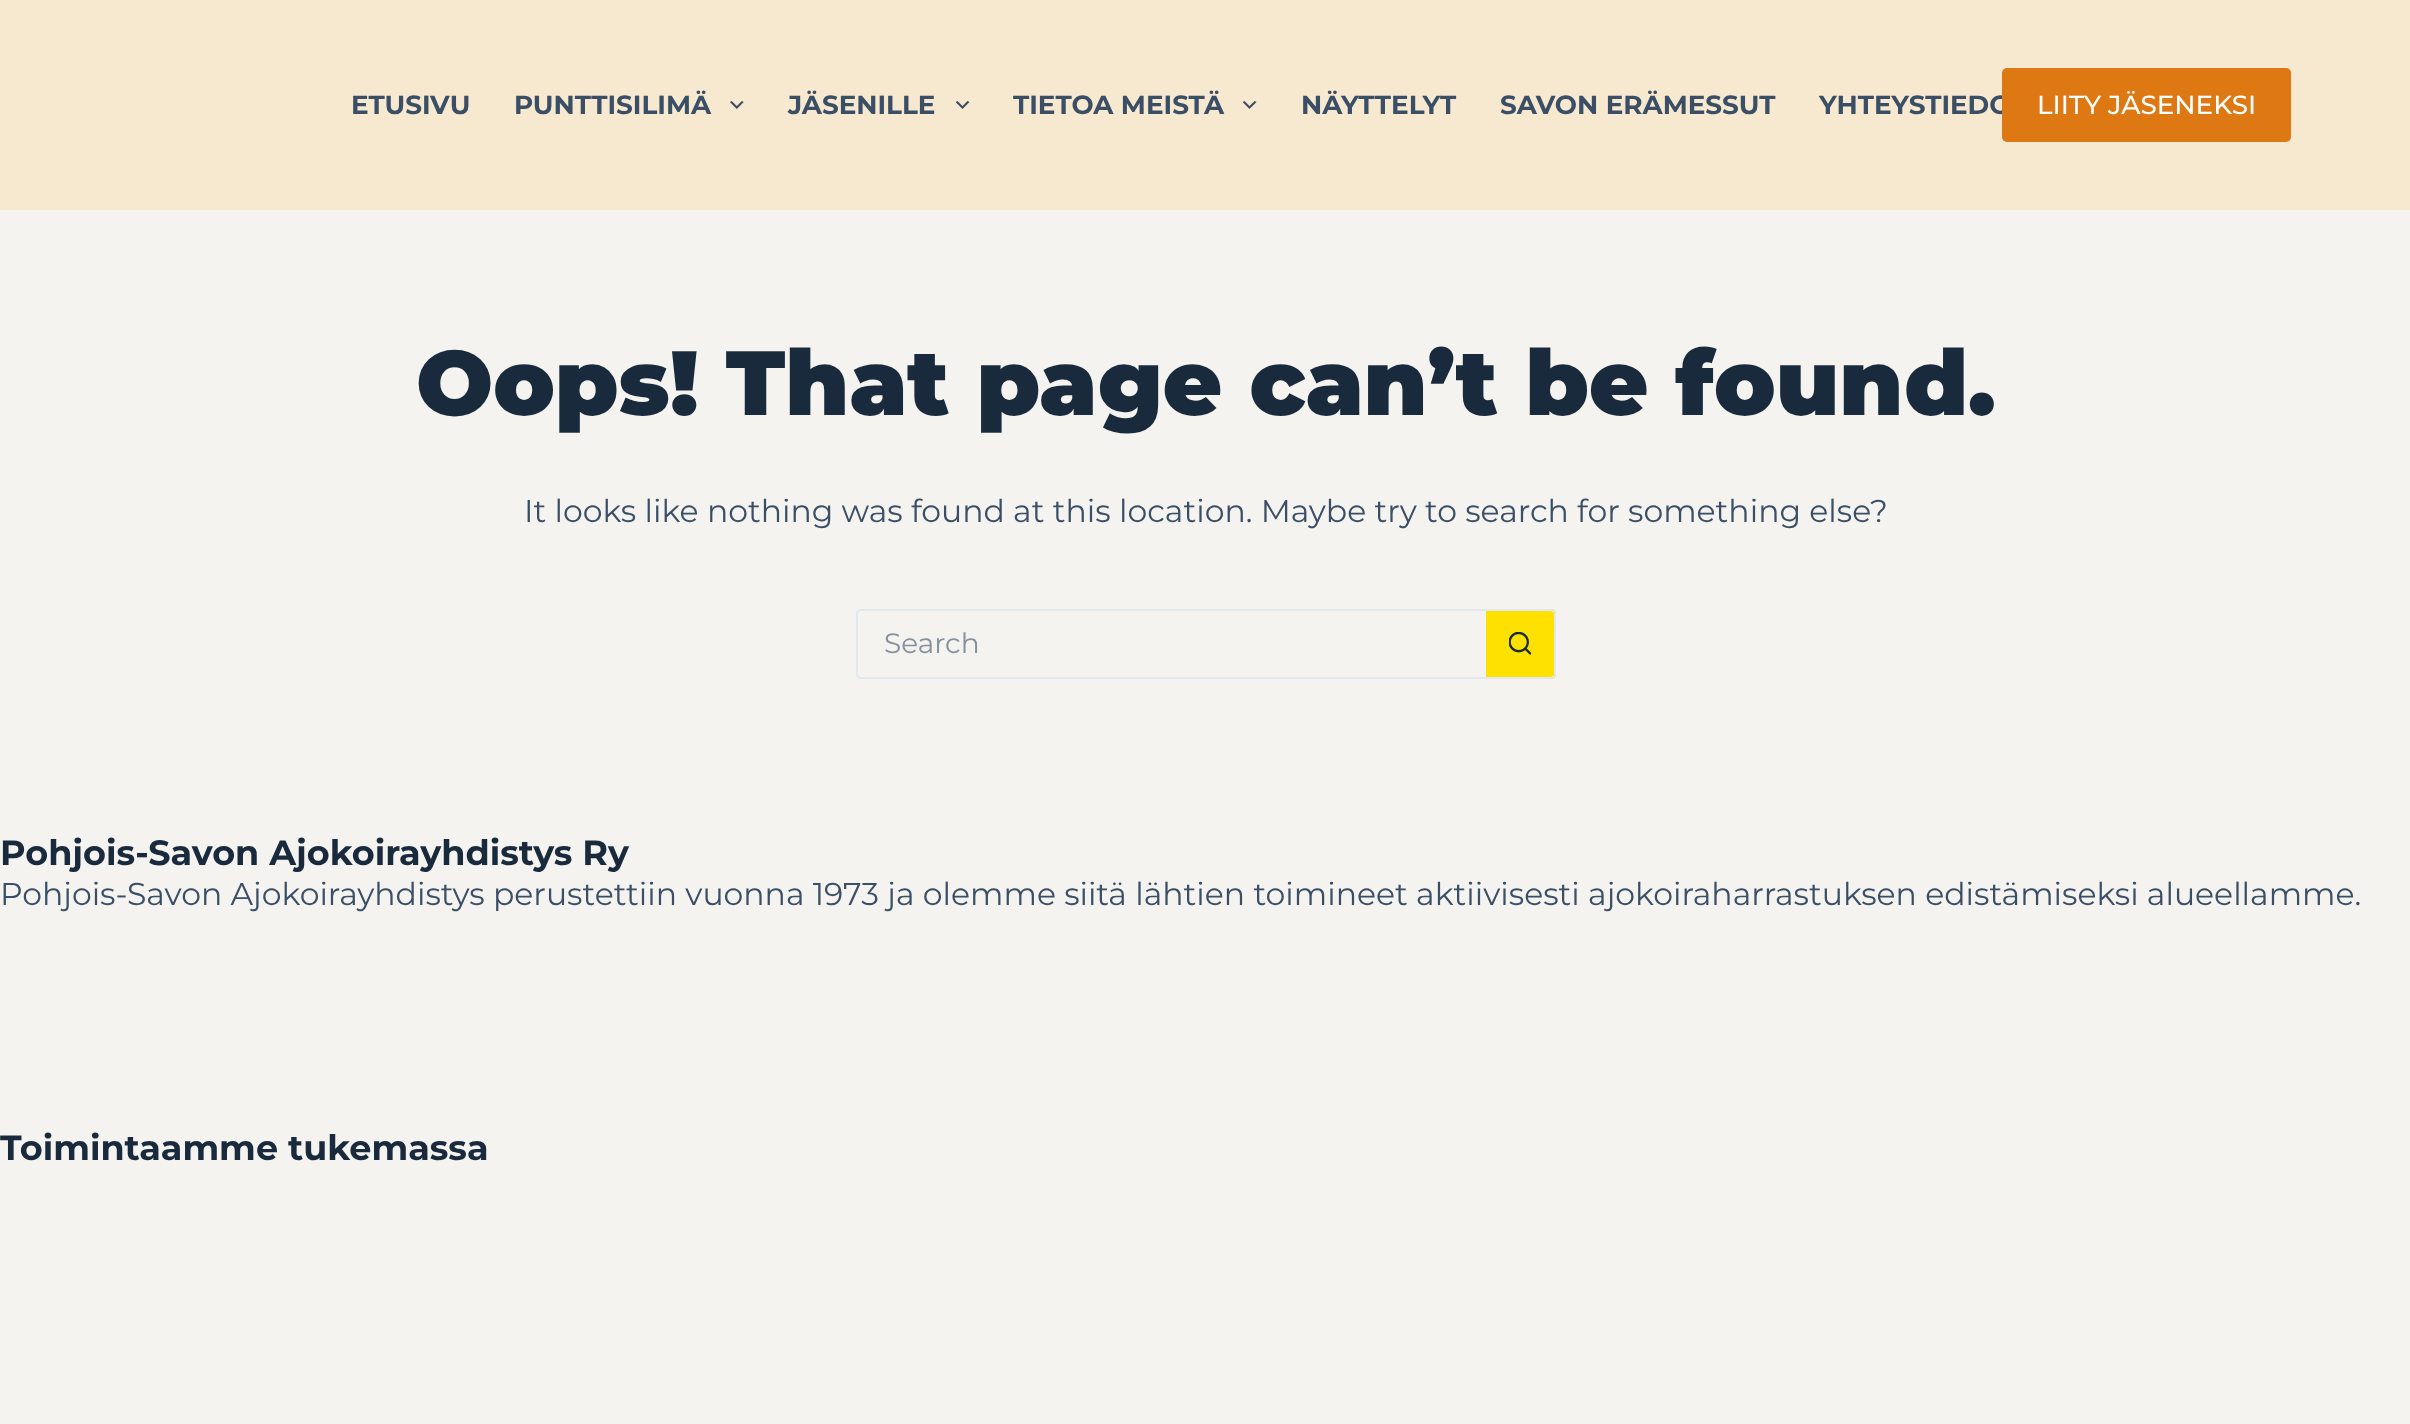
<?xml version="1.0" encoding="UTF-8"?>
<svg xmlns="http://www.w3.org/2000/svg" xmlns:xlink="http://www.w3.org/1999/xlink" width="2410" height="1424">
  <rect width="100%" height="100%" fill="#f5f3f0" />
  <rect width="2410" height="210" fill="#f7e8d0" />
  <image x="730" y="101" width="14" height="8" xlink:href="image1.png" />
  <image x="956" y="101" width="14" height="8" xlink:href="image2.png" />
  <image x="1243" y="101" width="14" height="8" xlink:href="image2.png" />
  <path d="M 861 609 h 625 v 70 h -625 c -3 0 -5 -2 -5 -5 v -60 c 0 -3 2 -5 5 -5 z m 0 2 h 625 v 66 h -625 c -2 0 -3 -1 -3 -3 v -60 c 0 -2 1 -3 3 -3 z" fill="#e1e8ed" fill-rule="evenodd" />
  <path d="M 1486 609 h 65 c 3 0 5 2 5 5 v 60 c 0 3 -2 5 -5 5 h -65 z" fill="#ffe100" />
  <path d="M 1486 609 h 64 c 3 0 6 2 6 5 v 60 c 0 3 -3 5 -6 5 h -64 z m 0 2 h 64 c 2 0 4 1 4 3 v 60 c 0 2 -2 3 -4 3 h -64 z" fill="#e1e8ed" fill-rule="evenodd" />
  <image x="1509" y="632" width="22" height="23" xlink:href="image3.png" />
  <text x="351" y="114" style="font-family: Montserrat; font-size: 26.25px; font-weight: bold; fill: #3a4f66">ETUSIVU</text>
  <text x="514" y="114" style="font-family: Montserrat; font-size: 26.25px; font-weight: bold; fill: #3a4f66">PUNTTISILIMÄ</text>
  <text x="788" y="114" style="font-family: Montserrat; font-size: 26.25px; font-weight: bold; fill: #3a4f66">JÄSENILLE</text>
  <text x="1013" y="114" style="font-family: Montserrat; font-size: 26.25px; font-weight: bold; fill: #3a4f66">TIETOA MEISTÄ</text>
  <text x="1301" y="114" style="font-family: Montserrat; font-size: 26.25px; font-weight: bold; fill: #3a4f66">NÄYTTELYT</text>
  <text x="1500" y="114" style="font-family: Montserrat; font-size: 26.25px; font-weight: bold; fill: #3a4f66">SAVON ERÄMESSUT</text>
  <text x="1819" y="114" style="font-family: Montserrat; font-size: 26.25px; font-weight: bold; fill: #3a4f66">YHTEYSTIEDO</text>
  <rect x="2002" y="68" width="289" height="74" rx="5" fill="#de7812" />
  <text x="2037" y="114" style="font-family: Montserrat; font-size: 26.25px; font-weight: 500; fill: #ffffff">LIITY JÄSENEKSI</text>
  <text x="416" y="415" style="font-family: Montserrat; font-size: 91px; font-weight: 900; fill: #192a3d">Oops! That page can’t be found.</text>
  <text x="524" y="522" style="font-family: Montserrat; font-size: 31.5px; fill: #3a4f66">It looks like nothing was found at this location. Maybe try to search for something else?</text>
  <text x="884" y="653" style="font-family: Montserrat; font-size: 28px; fill: #85919d">Search</text>
  <text x="0" y="865" style="font-family: Montserrat; font-size: 35px; font-weight: bold; fill: #192a3d">Pohjois-Savon Ajokoirayhdistys Ry</text>
  <text x="0" y="905" style="font-family: Montserrat; font-size: 31.5px; fill: #3a4f66">Pohjois-Savon Ajokoirayhdistys perustettiin vuonna 1973 ja olemme siitä lähtien toimineet aktiivisesti ajokoiraharrastuksen edistämiseksi alueellamme.</text>
  <text x="0" y="1160" style="font-family: Montserrat; font-size: 35px; font-weight: bold; fill: #192a3d">Toimintaamme tukemassa</text>
</svg>
